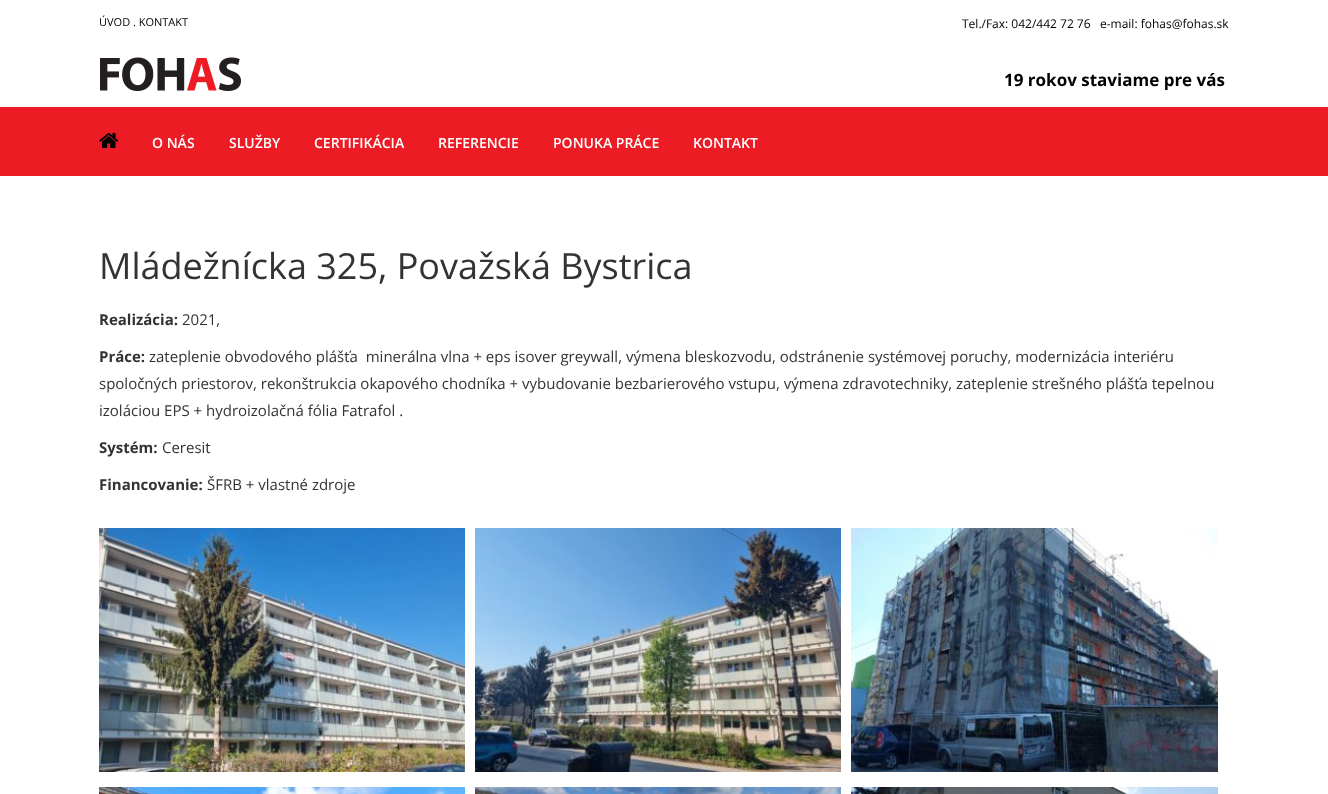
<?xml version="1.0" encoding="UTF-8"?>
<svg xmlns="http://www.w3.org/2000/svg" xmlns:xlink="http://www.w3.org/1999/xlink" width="1328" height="794">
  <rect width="100%" height="100%" fill="#ffffff" />
  <image x="100" y="57" width="141" height="34" xlink:href="image1.png" />
  <rect y="107" width="1328" height="69" fill="#ec1b24" />
  <image x="99" y="133" width="20" height="15" xlink:href="image2.png" />
  <image x="99" y="528" width="366" height="244" xlink:href="image3.png" />
  <image x="475" y="528" width="366" height="244" xlink:href="image4.png" />
  <image x="851" y="528" width="367" height="244" xlink:href="image5.png" />
  <image x="99" y="787" width="366" height="7" xlink:href="image6.png" />
  <image x="475" y="787" width="366" height="7" xlink:href="image7.png" />
  <image x="851" y="787" width="367" height="7" xlink:href="image8.png" />
  <text x="99" y="26" style="font-family: Open Sans; font-size: 11px; fill: #000000">ÚVOD . KONTAKT</text>
  <text x="962" y="28" style="font-family: Open Sans; font-size: 12px; fill: #000000" xml:space="preserve">Tel./Fax: 042/442 72 76   e-mail: fohas@fohas.sk</text>
  <text x="1004" y="86" style="font-family: Open Sans; font-size: 17px; font-weight: bold; fill: #000000">19 rokov staviame pre vás</text>
  <text x="152" y="148" style="font-family: Open Sans; font-size: 14px; font-weight: 600; fill: #ffffff">O NÁS</text>
  <text x="229" y="148" style="font-family: Open Sans; font-size: 14px; font-weight: 600; fill: #ffffff">SLUŽBY</text>
  <text x="314" y="148" style="font-family: Open Sans; font-size: 14px; font-weight: 600; fill: #ffffff">CERTIFIKÁCIA</text>
  <text x="438" y="148" style="font-family: Open Sans; font-size: 14px; font-weight: 600; fill: #ffffff">REFERENCIE</text>
  <text x="553" y="148" style="font-family: Open Sans; font-size: 14px; font-weight: 600; fill: #ffffff">PONUKA PRÁCE</text>
  <text x="693" y="148" style="font-family: Open Sans; font-size: 14px; font-weight: 600; fill: #ffffff">KONTAKT</text>
  <text x="99" y="279" style="font-family: Open Sans; font-size: 36px; fill: #333333">Mládežnícka 325, Považská Bystrica</text>
  <text x="99" y="325" style="font-family: Open Sans; font-size: 15px; font-weight: bold; fill: #333333">Realizácia:</text>
  <text x="182" y="325" style="font-family: Open Sans; font-size: 15px; fill: #333333">2021,</text>
  <text x="99" y="362" style="font-family: Open Sans; font-size: 15px; font-weight: bold; fill: #333333">Práce:</text>
  <text x="149" y="362" style="font-family: Open Sans; font-size: 15px; fill: #333333" xml:space="preserve">zateplenie obvodového plášťa  minerálna vlna + eps isover greywall, výmena bleskozvodu, odstránenie systémovej poruchy, modernizácia interiéru</text>
  <text x="99" y="389" style="font-family: Open Sans; font-size: 15px; fill: #333333">spoločných priestorov, rekonštrukcia okapového chodníka + vybudovanie bezbarierového vstupu, výmena zdravotechniky, zateplenie strešného plášťa tepelnou</text>
  <text x="99" y="416" style="font-family: Open Sans; font-size: 15px; fill: #333333">izoláciou EPS + hydroizolačná fólia Fatrafol .</text>
  <text x="99" y="453" style="font-family: Open Sans; font-size: 15px; font-weight: bold; fill: #333333">Systém:</text>
  <text x="162" y="453" style="font-family: Open Sans; font-size: 15px; fill: #333333">Ceresit</text>
  <text x="99" y="490" style="font-family: Open Sans; font-size: 15px; font-weight: bold; fill: #333333">Financovanie:</text>
  <text x="207" y="490" style="font-family: Open Sans; font-size: 15px; fill: #333333">ŠFRB + vlastné zdroje</text>
</svg>
